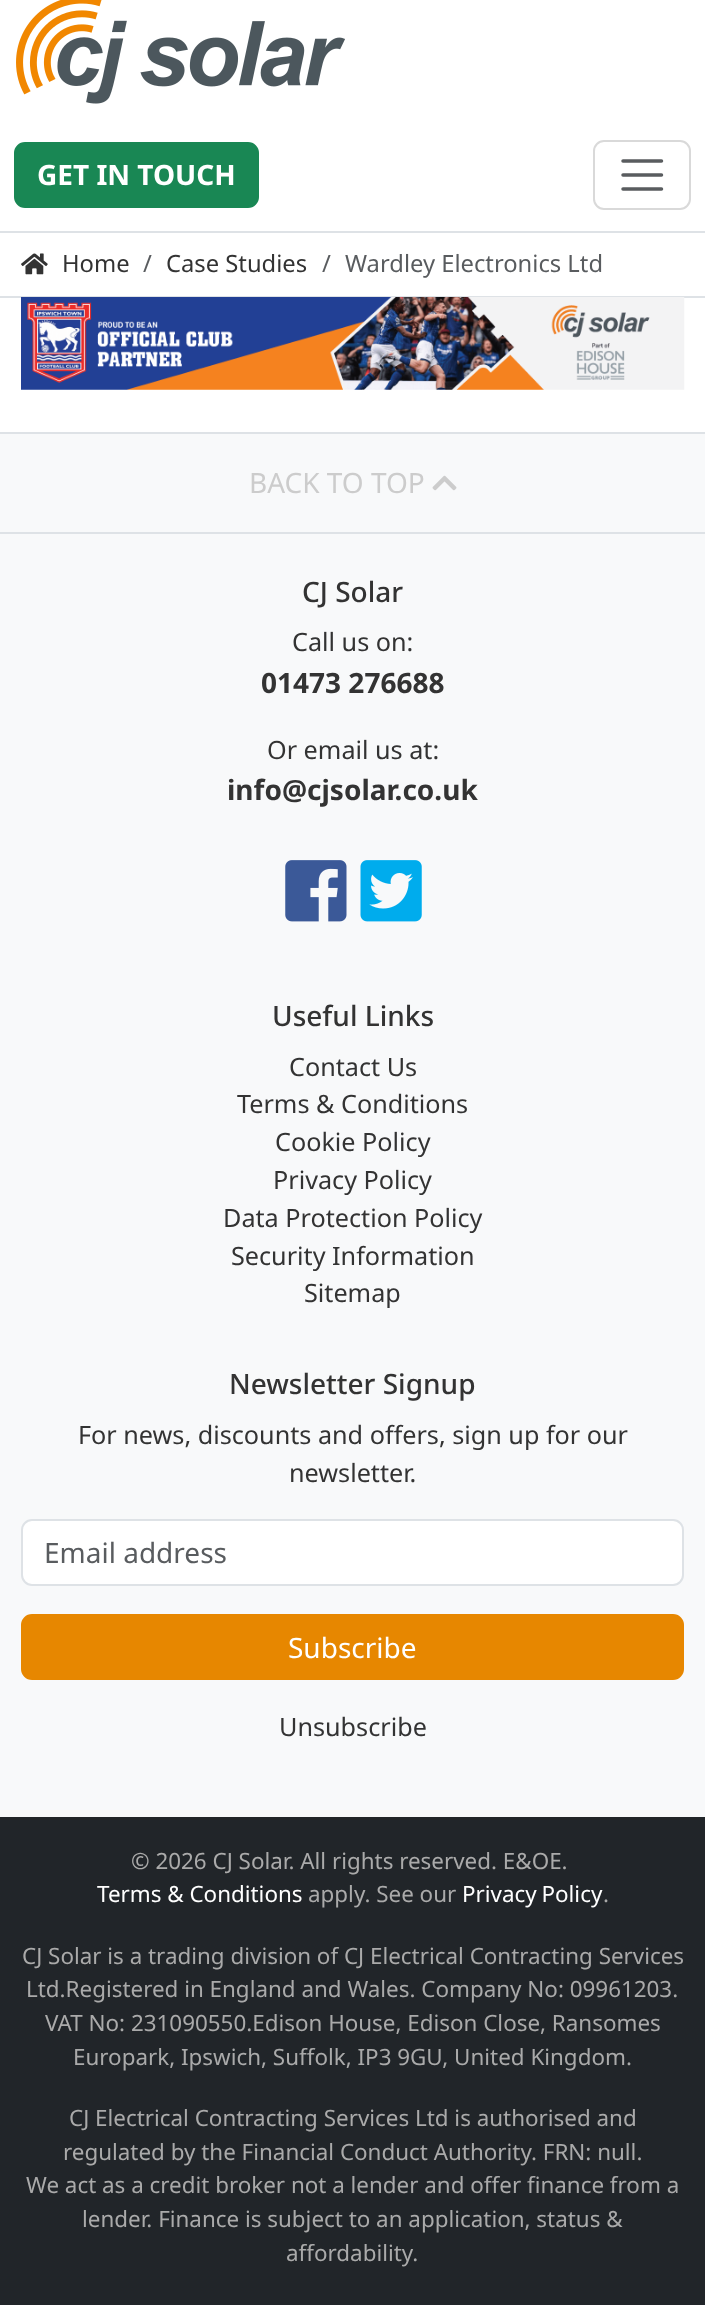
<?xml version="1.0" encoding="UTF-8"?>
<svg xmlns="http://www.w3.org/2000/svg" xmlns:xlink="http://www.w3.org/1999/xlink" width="705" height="2305">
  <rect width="100%" height="100%" fill="#ffffff" />
  <rect y="231" width="705" height="2" fill="#dee2e6" />
  <image x="16" y="0" width="329" height="104" xlink:href="image1.png" />
  <rect x="15" y="143" width="243" height="64" rx="10" fill="#198754" stroke="#198754" stroke-width="2" />
  <rect x="594" y="141" width="96" height="68" rx="10" fill="none" stroke="#d9d9d9" stroke-width="2" />
  <path d="M 623 161 h 38.5 m -38.5 14 h 38.5 m -38.5 14 h 38.5" fill="none" stroke="#595c5f" stroke-width="3.5" stroke-linecap="round" />
  <rect y="296" width="705" height="2" fill="#dee2e6" />
  <image x="21" y="253" width="27" height="22" xlink:href="image2.png" />
  <image x="21" y="297" width="664" height="93" xlink:href="image3.png" />
  <rect y="434" width="705" height="98" fill="#f8f9fa" />
  <rect y="432" width="705" height="2" fill="#dee2e6" />
  <image x="432" y="475" width="25" height="16" xlink:href="image4.png" />
  <rect y="534" width="705" height="1283" fill="#f8f9fa" />
  <rect y="532" width="705" height="2" fill="#dee2e6" />
  <image x="285" y="860" width="62" height="62" xlink:href="image5.png" />
  <image x="360" y="860" width="62" height="62" xlink:href="image6.png" />
  <rect x="22" y="1520" width="661" height="65" rx="10" fill="#ffffff" stroke="#dee2e6" stroke-width="2" />
  <rect x="22" y="1615" width="661" height="64" rx="10" fill="#e78700" stroke="#e78700" stroke-width="2" />
  <rect y="1817" width="705" height="488" fill="#212529" />
  <text x="37" y="185" style="font-family: Noto Sans; font-size: 28px; font-weight: bold; fill: #ffffff">GET IN TOUCH</text>
  <text x="62" y="272" style="font-family: Noto Sans; font-size: 23.75px; fill: #333333">Home</text>
  <text x="143" y="272" style="font-family: Noto Sans; font-size: 23.75px; fill: #595c5f">/</text>
  <text x="166" y="272" style="font-family: Noto Sans; font-size: 23.75px; fill: #333333">Case Studies</text>
  <text x="322" y="272" style="font-family: Noto Sans; font-size: 23.75px; fill: #595c5f">/</text>
  <text x="345" y="272" style="font-family: Noto Sans; font-size: 23.75px; fill: #595c5f">Wardley Electronics Ltd</text>
  <text x="249" y="493" style="font-family: Noto Sans; font-size: 28px; fill: #cccccc">BACK TO TOP</text>
  <text x="302" y="602" style="font-family: Noto Sans; font-size: 28px; font-weight: 500; fill: #333333">CJ Solar</text>
  <text x="292" y="651" style="font-family: Noto Sans; font-size: 25.2px; fill: #333333">Call us on:</text>
  <text x="261" y="693" style="font-family: Noto Sans; font-size: 28px; font-weight: bold; fill: #333333">01473 276688</text>
  <text x="267" y="759" style="font-family: Noto Sans; font-size: 25.2px; fill: #333333">Or email us at:</text>
  <text x="227" y="800" style="font-family: Noto Sans; font-size: 28px; font-weight: bold; fill: #333333">info@cjsolar.co.uk</text>
  <text x="272" y="1026" style="font-family: Noto Sans; font-size: 28px; font-weight: 500; fill: #333333">Useful Links</text>
  <text x="289" y="1076" style="font-family: Noto Sans; font-size: 25.2px; fill: #333333">Contact Us</text>
  <text x="237" y="1113" style="font-family: Noto Sans; font-size: 25.2px; fill: #333333">Terms &amp; Conditions</text>
  <text x="275" y="1151" style="font-family: Noto Sans; font-size: 25.2px; fill: #333333">Cookie Policy</text>
  <text x="273" y="1189" style="font-family: Noto Sans; font-size: 25.2px; fill: #333333">Privacy Policy</text>
  <text x="223" y="1227" style="font-family: Noto Sans; font-size: 25.2px; fill: #333333">Data Protection Policy</text>
  <text x="231" y="1265" style="font-family: Noto Sans; font-size: 25.2px; fill: #333333">Security Information</text>
  <text x="304" y="1302" style="font-family: Noto Sans; font-size: 25.2px; fill: #333333">Sitemap</text>
  <text x="229" y="1394" style="font-family: Noto Sans; font-size: 28px; font-weight: 500; fill: #333333">Newsletter Signup</text>
  <text x="78" y="1444" style="font-family: Noto Sans; font-size: 25.2px; fill: #333333">For news, discounts and offers, sign up for our</text>
  <text x="289" y="1482" style="font-family: Noto Sans; font-size: 25.2px; fill: #333333">newsletter.</text>
  <text x="44" y="1563" style="font-family: Noto Sans; font-size: 28px; fill: #595c5f">Email address</text>
  <text x="288" y="1658" style="font-family: Noto Sans; font-size: 28px; fill: #ffffff">Subscribe</text>
  <text x="279" y="1736" style="font-family: Noto Sans; font-size: 25.2px; fill: #333333">Unsubscribe</text>
  <text x="131" y="1869" style="font-family: Noto Sans; font-size: 22.4px; fill: #aaaaaa">© 2026 CJ Solar. All rights reserved. E&amp;OE.</text>
  <text x="97" y="1902" style="font-family: Noto Sans; font-size: 22.4px; fill: #ffffff">Terms &amp; Conditions</text>
  <text x="308" y="1902" style="font-family: Noto Sans; font-size: 22.4px; fill: #aaaaaa">apply. See our</text>
  <text x="462" y="1902" word-spacing="-1" style="font-family: Noto Sans; font-size: 22.4px; fill: #ffffff">Privacy Policy</text>
  <text x="603" y="1902" style="font-family: Noto Sans; font-size: 22.4px; fill: #aaaaaa">.</text>
  <text x="22" y="1964" style="font-family: Noto Sans; font-size: 22.4px; fill: #aaaaaa">CJ Solar is a trading division of CJ Electrical Contracting Services</text>
  <text x="26" y="1997" style="font-family: Noto Sans; font-size: 22.4px; fill: #aaaaaa">Ltd.Registered in England and Wales. Company No: 09961203.</text>
  <text x="45" y="2031" style="font-family: Noto Sans; font-size: 22.4px; fill: #aaaaaa">VAT No: 231090550.Edison House, Edison Close, Ransomes</text>
  <text x="73" y="2065" style="font-family: Noto Sans; font-size: 22.4px; fill: #aaaaaa">Europark, Ipswich, Suffolk, IP3 9GU, United Kingdom.</text>
  <text x="69" y="2126" style="font-family: Noto Sans; font-size: 22.4px; fill: #aaaaaa">CJ Electrical Contracting Services Ltd is authorised and</text>
  <text x="63" y="2160" style="font-family: Noto Sans; font-size: 22.4px; fill: #aaaaaa">regulated by the Financial Conduct Authority. FRN: null.</text>
  <text x="26" y="2193" style="font-family: Noto Sans; font-size: 22.4px; fill: #aaaaaa">We act as a credit broker not a lender and offer finance from a</text>
  <text x="82" y="2227" style="font-family: Noto Sans; font-size: 22.4px; fill: #aaaaaa">lender. Finance is subject to an application, status &amp;</text>
  <text x="286" y="2261" style="font-family: Noto Sans; font-size: 22.4px; fill: #aaaaaa">affordability.</text>
</svg>
